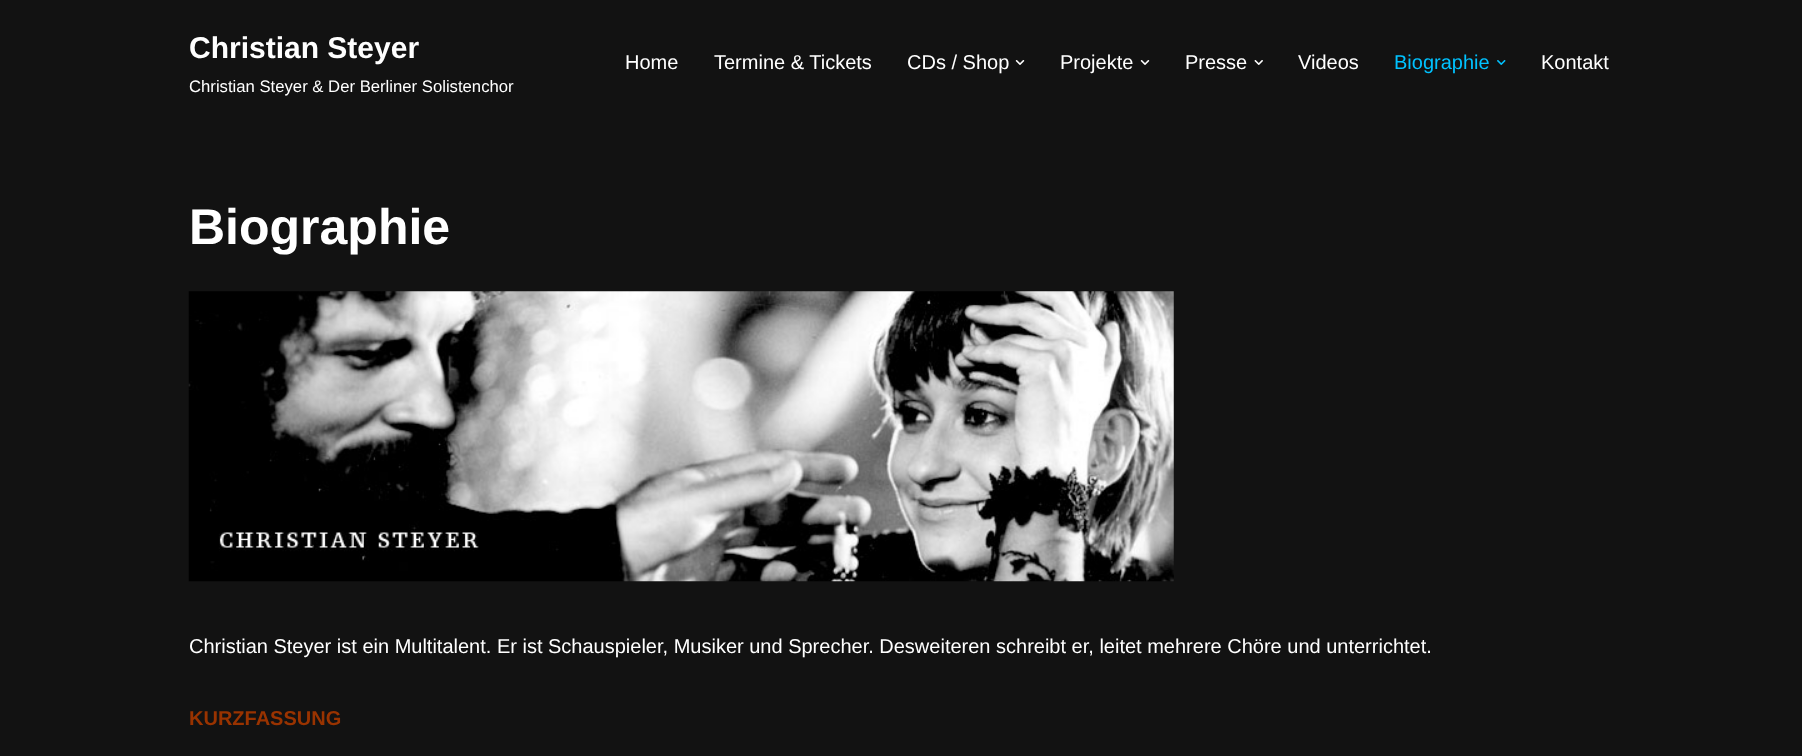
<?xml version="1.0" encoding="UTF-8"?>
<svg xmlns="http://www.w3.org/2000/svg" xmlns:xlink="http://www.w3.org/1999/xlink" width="1802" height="756">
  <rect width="100%" height="100%" fill="#121212" />
  <image x="1015" y="60" width="10" height="5" xlink:href="image1.png" />
  <image x="1140" y="60" width="10" height="5" xlink:href="image1.png" />
  <image x="1254" y="60" width="9" height="5" xlink:href="image2.png" />
  <image x="1497" y="60" width="9" height="5" xlink:href="image3.png" />
  <image x="188" y="291" width="986" height="291" xlink:href="image4.png" />
  <text x="189" y="58" style="font-family: Liberation Sans; font-size: 30px; font-weight: bold; fill: #ffffff">Christian Steyer</text>
  <text x="189" y="92" style="font-family: Liberation Sans; font-size: 16.7px; fill: #ffffff">Christian Steyer &amp; Der Berliner Solistenchor</text>
  <text x="625" y="69" style="font-family: Liberation Sans; font-size: 20px; fill: #ffffff">Home</text>
  <text x="714" y="69" style="font-family: Liberation Sans; font-size: 20px; fill: #ffffff">Termine &amp; Tickets</text>
  <text x="907" y="69" style="font-family: Liberation Sans; font-size: 20px; fill: #ffffff">CDs / Shop</text>
  <text x="1060" y="69" style="font-family: Liberation Sans; font-size: 20px; fill: #ffffff">Projekte</text>
  <text x="1185" y="69" style="font-family: Liberation Sans; font-size: 20px; fill: #ffffff">Presse</text>
  <text x="1298" y="69" style="font-family: Liberation Sans; font-size: 20px; fill: #ffffff">Videos</text>
  <text x="1394" y="69" style="font-family: Liberation Sans; font-size: 20px; fill: #00c2ff">Biographie</text>
  <text x="1541" y="69" style="font-family: Liberation Sans; font-size: 20px; fill: #ffffff">Kontakt</text>
  <text x="189" y="244" style="font-family: Liberation Sans; font-size: 50px; font-weight: bold; fill: #ffffff">Biographie</text>
  <text x="189" y="653" style="font-family: Liberation Sans; font-size: 20px; fill: #ffffff">Christian Steyer ist ein Multitalent. Er ist Schauspieler, Musiker und Sprecher. Desweiteren schreibt er, leitet mehrere Chöre und unterrichtet.</text>
  <text x="189" y="725" style="font-family: Liberation Sans; font-size: 20px; font-weight: bold; fill: #993300">KURZFASSUNG</text>
</svg>
